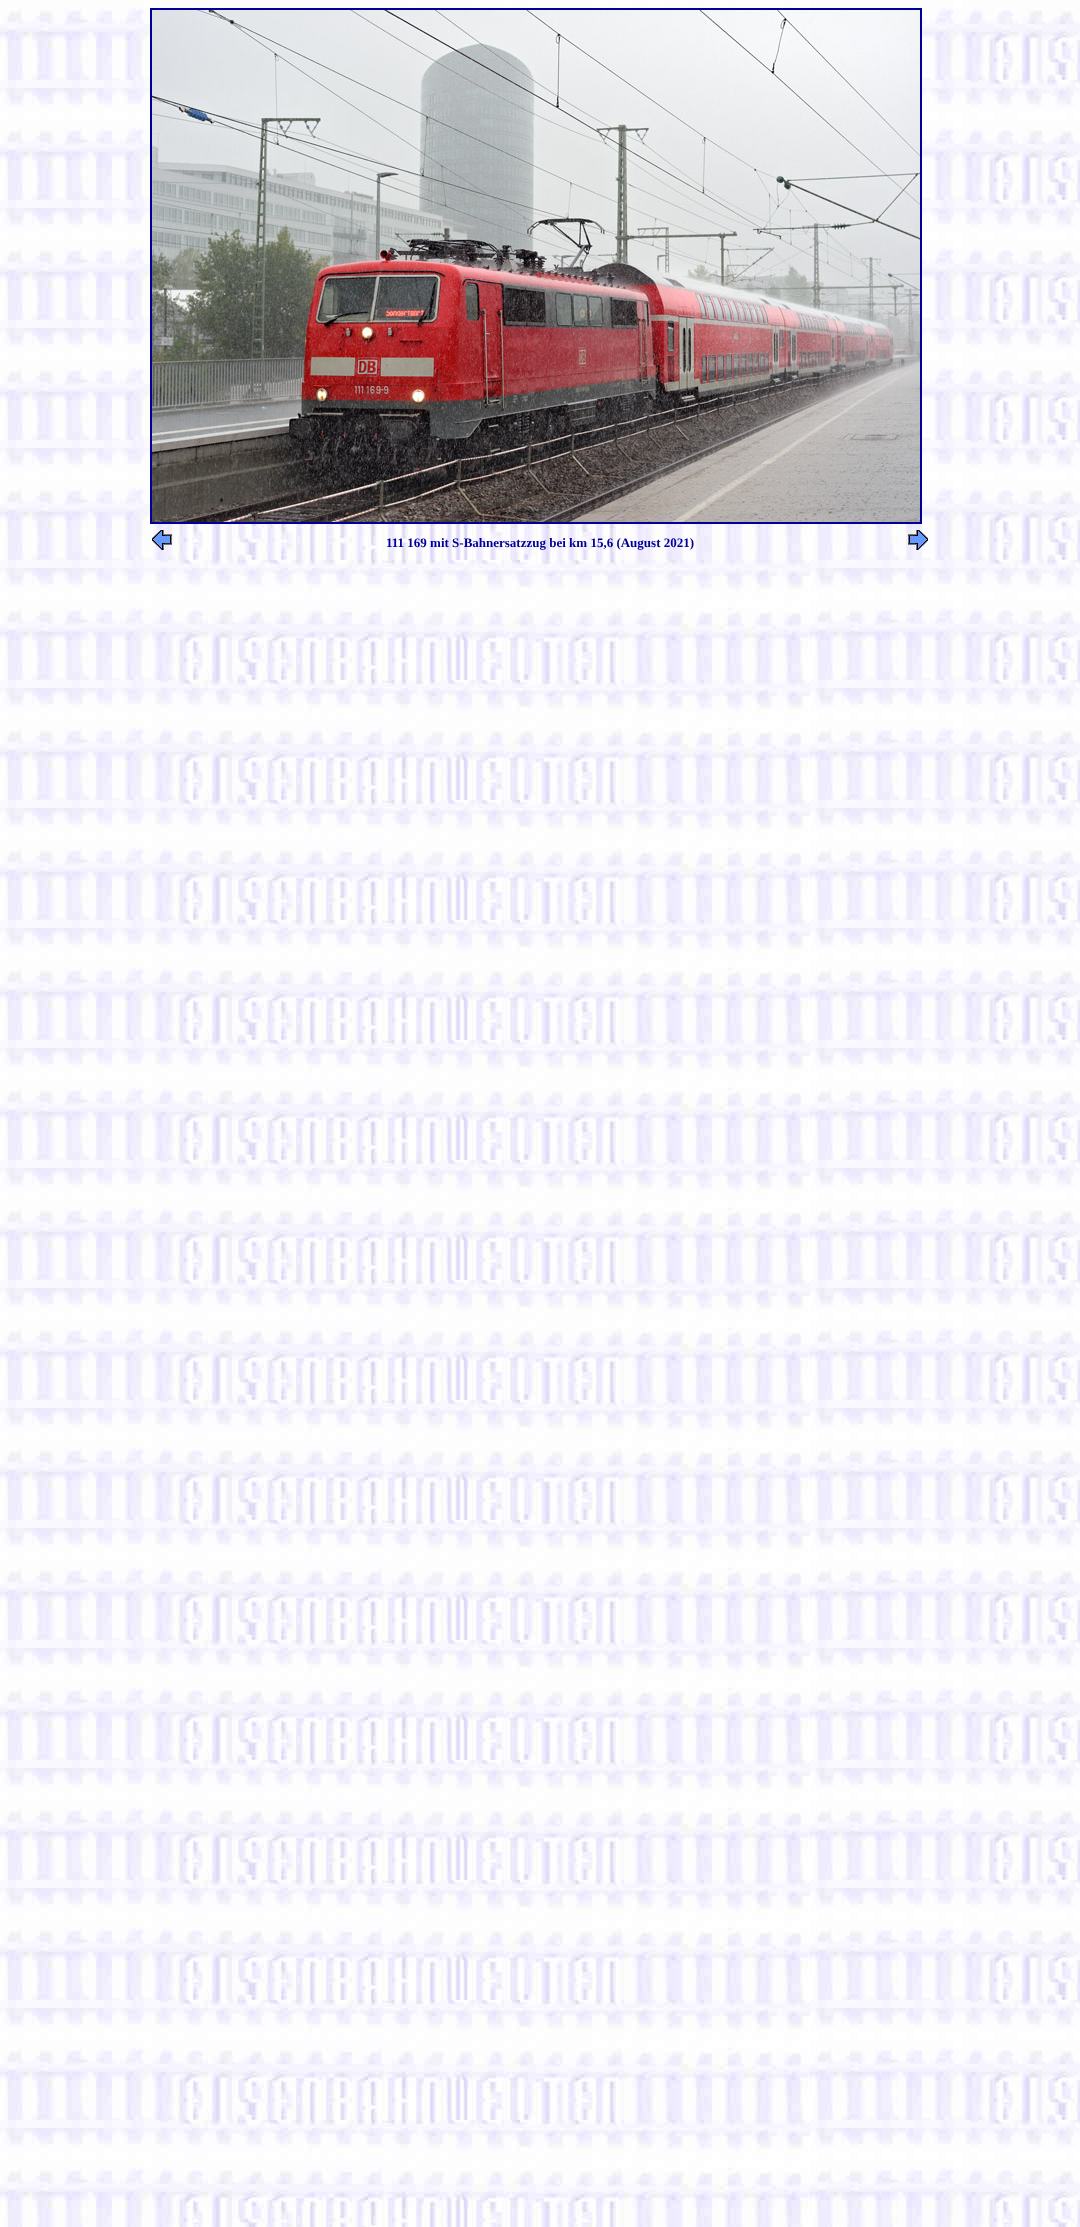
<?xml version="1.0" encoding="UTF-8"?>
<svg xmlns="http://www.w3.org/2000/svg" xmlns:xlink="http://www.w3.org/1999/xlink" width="1080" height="2227">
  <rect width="100%" height="100%" fill="#ffffff" />
  <image x="0" y="0" width="1080" height="2227" xlink:href="image1.png" />
  <rect x="151" y="9" width="770" height="514" fill="none" stroke="#000099" stroke-width="2" />
  <image x="152" y="10" width="768" height="512" xlink:href="image2.png" />
  <image x="152" y="530" width="20" height="20" xlink:href="image3.png" />
  <image x="908" y="530" width="20" height="20" xlink:href="image4.png" />
  <text x="386" y="547" style="font-family: Liberation Serif; font-size: 13px; font-weight: bold; fill: #000099">111 169 mit S-Bahnersatzzug bei km 15,6 (August 2021)</text>
</svg>
